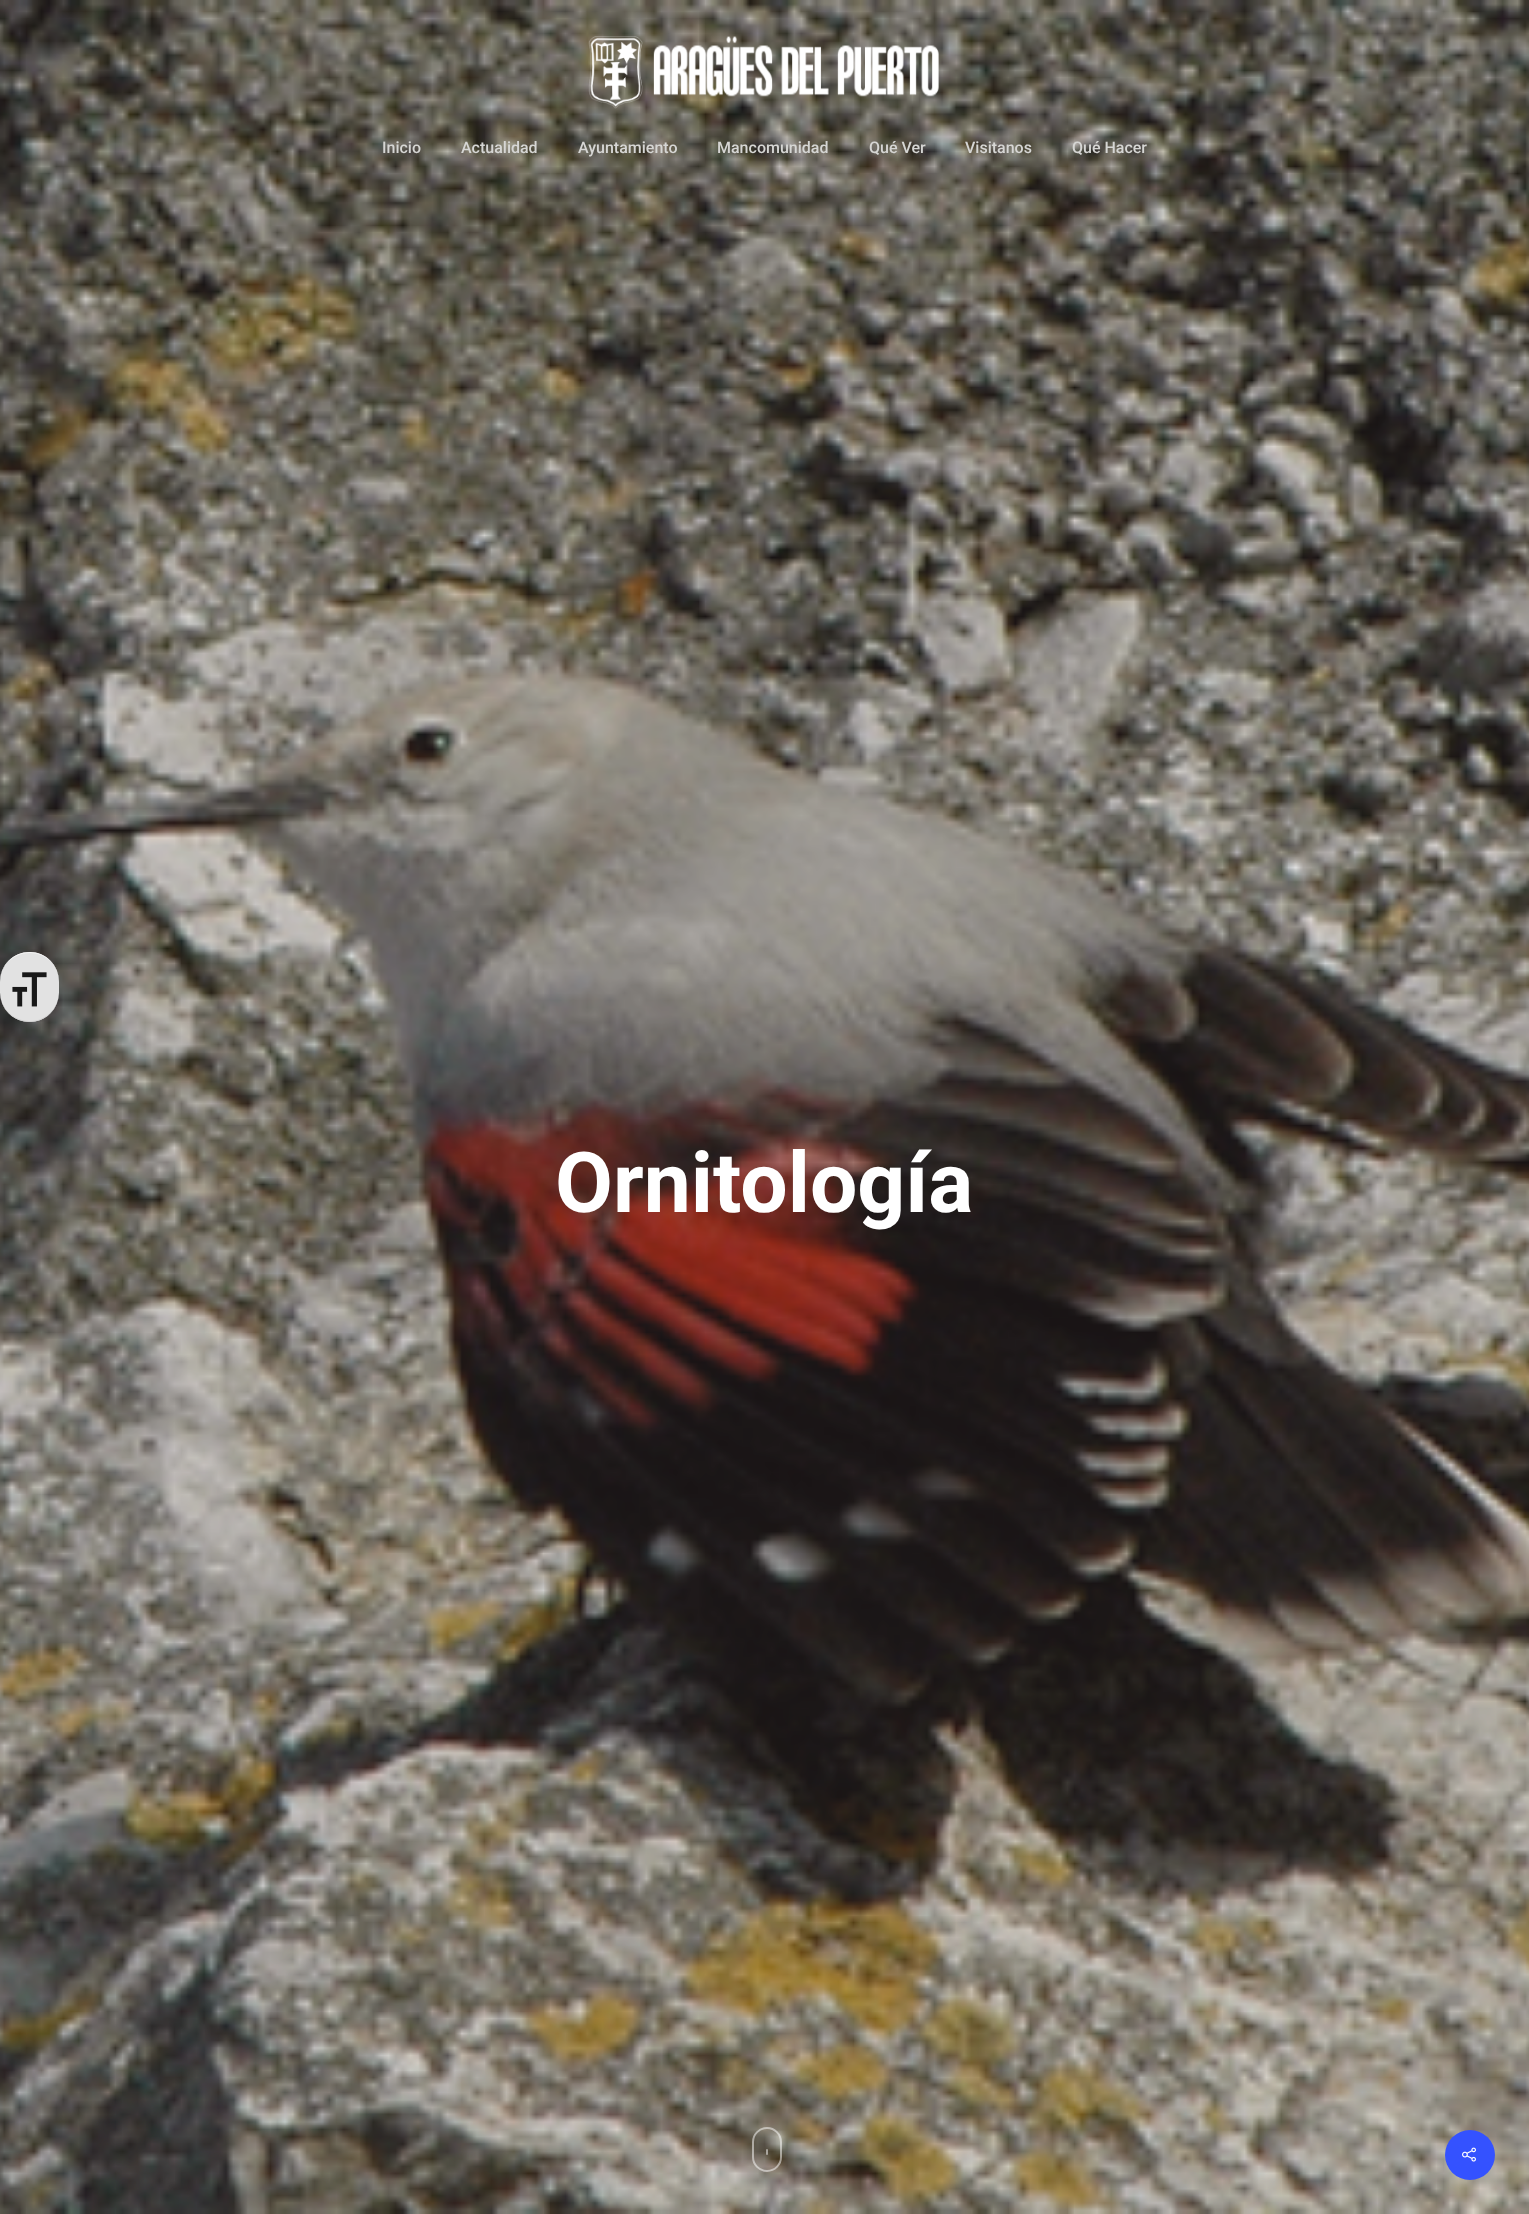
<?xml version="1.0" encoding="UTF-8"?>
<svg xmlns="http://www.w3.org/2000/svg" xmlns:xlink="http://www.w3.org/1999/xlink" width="1529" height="2214">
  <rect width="100%" height="100%" fill="#ffffff" />
  <image x="0" y="0" width="1529" height="2214" xlink:href="image3.png" />
  <image x="588" y="36" width="351" height="73" xlink:href="image1.png" />
  <rect y="952" width="59" height="70" rx="29.5" fill="#e2e2e2" />
  <path d="M 30 952 c -17 0 -30 13 -30 30 c 0 -16 13 -29 30 -29 c 16 0 29 13 29 29 c 0 -17 -13 -30 -29 -30 z" fill="#f5f5f5" />
  <path d="M 30 1022 c 16 0 29 -13 29 -30 c 0 16 -13 29 -29 29 c -17 0 -30 -13 -30 -29 c 0 17 13 30 30 30 z" fill="#d2d2d2" />
  <image x="12" y="972" width="35" height="35" xlink:href="image2.png" />
  <rect x="766" y="2149" width="2" height="6" rx="1" fill="#ffffff" fill-opacity="0.5" />
  <rect x="753" y="2128" width="28" height="43" rx="14" fill="none" stroke="#ffffff" stroke-opacity="0.5" stroke-width="2" />
  <circle cx="1470" cy="2155" r="25" fill="#3452ff" />
  <image x="1462" y="2147" width="14" height="15" xlink:href="image4.png" />
  <text x="382" y="153" style="font-family: Roboto; font-size: 16px; font-weight: 500; fill: #d6d6d4">Inicio</text>
  <text x="461" y="153" style="font-family: Roboto; font-size: 16px; font-weight: 500; fill: #d6d6d4">Actualidad</text>
  <text x="578" y="153" style="font-family: Roboto; font-size: 16px; font-weight: 500; fill: #d6d6d4">Ayuntamiento</text>
  <text x="717" y="153" style="font-family: Roboto; font-size: 16px; font-weight: 500; fill: #d6d6d4">Mancomunidad</text>
  <text x="869" y="153" style="font-family: Roboto; font-size: 16px; font-weight: 500; fill: #d6d6d4">Qué Ver</text>
  <text x="965" y="153" style="font-family: Roboto; font-size: 16px; font-weight: 500; fill: #d6d6d4">Visitanos</text>
  <text x="1072" y="153" style="font-family: Roboto; font-size: 16px; font-weight: 500; fill: #d6d6d4">Qué Hacer</text>
  <text x="555" y="1212" style="font-family: Roboto; font-size: 84px; font-weight: bold; fill: #ffffff">Ornitología</text>
</svg>
